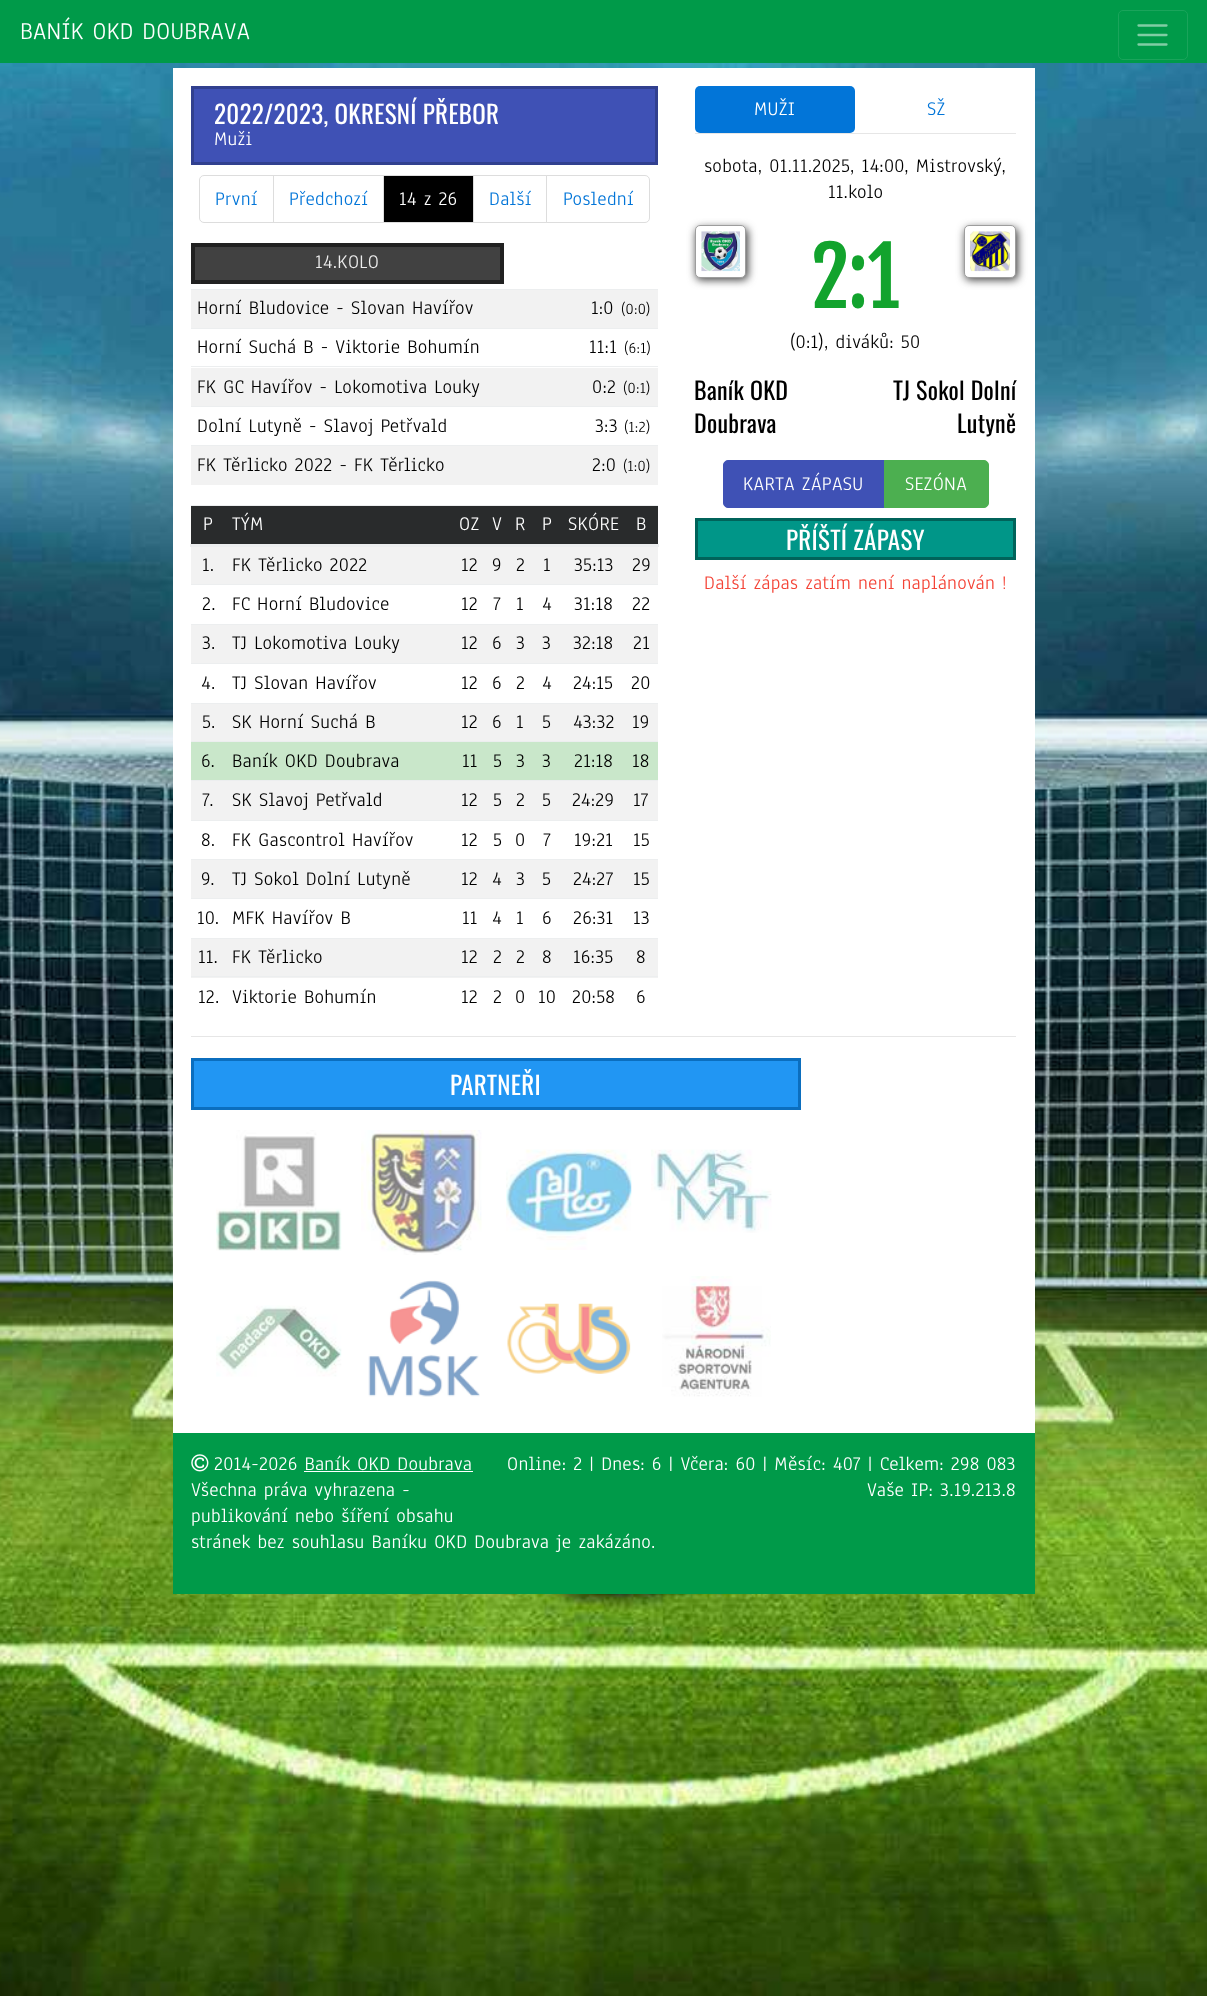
<?xml version="1.0" encoding="UTF-8"?>
<svg xmlns="http://www.w3.org/2000/svg" xmlns:xlink="http://www.w3.org/1999/xlink" width="1207" height="1996">
  <rect width="100%" height="100%" fill="#ffffff" />
  <image x="0" y="63" width="1207" height="1933" xlink:href="image1.png" />
  <rect width="1207" height="63" fill="#009a49" />
  <rect x="1118.5" y="10.5" width="69" height="49" rx="4.5" fill="none" stroke="#1aa45b" />
  <path d="M 1138.5 25.5 h 28 m -28 9.5 h 28 m -28 9.5 h 28" fill="none" stroke="#80cda4" stroke-width="2.3" stroke-linecap="round" />
  <rect x="173" y="68" width="862" height="1365" fill="#ffffff" />
  <rect x="192.5" y="87.5" width="464" height="76" fill="#3f51b5" stroke="#31408f" stroke-width="3" />
  <path d="M 204 175.5 h 69.5 v 47 h -69.5 c -2.5 0 -4.5 -2 -4.5 -4.5 v -38 c 0 -2.5 2 -4.5 4.5 -4.5 z" fill="none" stroke="#dddddd" />
  <rect x="273.5" y="175.5" width="110" height="47" fill="none" stroke="#dddddd" />
  <rect x="383.5" y="175.5" width="90" height="47" fill="#000000" stroke="#dddddd" />
  <rect x="473.5" y="175.5" width="74" height="47" fill="none" stroke="#dddddd" />
  <path d="M 546.5 175.5 h 98.5 c 2.5 0 4.5 2 4.5 4.5 v 38 c 0 2.5 -2 4.5 -4.5 4.5 h -98.5 z" fill="#ffffff" stroke="#dddddd" />
  <rect x="193" y="245" width="309" height="37" fill="#414141" stroke="#212121" stroke-width="4" />
  <rect x="191" y="290" width="467" height="38" fill="#f2f2f2" />
  <rect x="191" y="289" width="467" height="1" fill="#eceeef" />
  <rect x="191" y="328" width="467" height="1" fill="#eceeef" />
  <rect x="191" y="368" width="467" height="38" fill="#f2f2f2" />
  <rect x="191" y="366" width="467" height="1" fill="#eceeef" />
  <rect x="191" y="406" width="467" height="1" fill="#eceeef" />
  <rect x="191" y="446" width="467" height="39" fill="#f2f2f2" />
  <rect x="191" y="445" width="467" height="1" fill="#eceeef" />
  <rect x="191" y="506" width="467" height="38" fill="#292b2c" />
  <rect x="191" y="505" width="467" height="1" fill="#eceeef" />
  <rect x="190" y="544" width="469" height="3" fill="#eceeef" />
  <rect x="191" y="547" width="467" height="37" fill="#f2f2f2" />
  <rect x="191" y="584" width="467" height="1" fill="#eceeef" />
  <rect x="191" y="625" width="467" height="38" fill="#f2f2f2" />
  <rect x="191" y="624" width="467" height="1" fill="#eceeef" />
  <rect x="191" y="663" width="467" height="1" fill="#eceeef" />
  <rect x="191" y="704" width="467" height="37" fill="#f2f2f2" />
  <rect x="191" y="703" width="467" height="1" fill="#eceeef" />
  <rect x="191" y="742" width="467" height="38" fill="#c9e7ca" />
  <rect x="191" y="741" width="467" height="1" fill="#eceeef" />
  <rect x="191" y="781" width="467" height="39" fill="#f2f2f2" />
  <rect x="191" y="780" width="467" height="1" fill="#eceeef" />
  <rect x="191" y="820" width="467" height="1" fill="#eceeef" />
  <rect x="191" y="860" width="467" height="38" fill="#f2f2f2" />
  <rect x="191" y="859" width="467" height="1" fill="#eceeef" />
  <rect x="191" y="898" width="467" height="1" fill="#eceeef" />
  <rect x="191" y="939" width="467" height="39" fill="#f2f2f2" />
  <rect x="191" y="938" width="467" height="1" fill="#eceeef" />
  <rect x="191" y="976" width="467" height="1" fill="#eceeef" />
  <rect x="695" y="86" width="160" height="47" rx="5" fill="#0275d8" />
  <rect x="695" y="133" width="321" height="1" fill="#e6e6e6" />
  <rect x="696" y="228" width="52" height="52" rx="5" fill="#414141" filter="blur(4px)" />
  <rect x="695.5" y="225.5" width="50" height="52" rx="4.5" fill="#ffffff" stroke="#9d9d9d" />
  <image x="701" y="231" width="39" height="41" xlink:href="image2.png" />
  <rect x="965" y="228" width="53" height="52" rx="5" fill="#414141" filter="blur(4px)" />
  <rect x="964.5" y="225.5" width="51" height="52" rx="4.5" fill="#ffffff" stroke="#9d9d9d" />
  <image x="970" y="231" width="40" height="41" xlink:href="image3.png" />
  <path d="M 728 460.5 h 156.5 v 47 h -156.5 c -2.5 0 -4.5 -2 -4.5 -4.5 v -38 c 0 -2.5 2 -4.5 4.5 -4.5 z" fill="#3f51b5" stroke="#3f51b5" />
  <path d="M 884.5 460.5 h 99.5 c 2.5 0 4.5 2 4.5 4.5 v 38 c 0 2.5 -2 4.5 -4.5 4.5 h -99.5 z" fill="#4caf50" stroke="#4caf50" />
  <rect x="696.5" y="519.5" width="318" height="39" fill="#009688" stroke="#00635a" stroke-width="3" />
  <rect x="191" y="1036" width="825" height="1" fill="#e6e6e6" />
  <rect x="192.5" y="1059.5" width="607" height="49" fill="#2196f3" stroke="#0b6ebe" stroke-width="3" />
  <image x="216" y="1130" width="126" height="121" xlink:href="image4.png" />
  <image x="361" y="1130" width="121" height="125" xlink:href="image5.png" />
  <image x="506" y="1149" width="126" height="101" xlink:href="image6.png" />
  <image x="651" y="1149" width="121" height="84" xlink:href="image7.png" />
  <image x="216" y="1305" width="126" height="72" xlink:href="image8.png" />
  <image x="368" y="1280" width="112" height="117" xlink:href="image9.png" />
  <image x="507" y="1303" width="124" height="71" xlink:href="image10.png" />
  <image x="662" y="1276" width="109" height="121" xlink:href="image11.png" />
  <rect x="173" y="1433" width="862" height="161" fill="#009a49" />
  <image x="191" y="1454" width="18" height="18" xlink:href="image12.png" />
  <rect x="304" y="1471" width="169" height="1" fill="#ffffff" />
  <text x="20" y="39" style="font-family: Anaheim; font-size: 25px; letter-spacing: 0.3px; fill: #ffffff">BANÍK OKD DOUBRAVA</text>
  <text x="214" y="124" style="font-family: Oswald; font-size: 25px; letter-spacing: 0.3px; fill: #ffffff">2022/2023, OKRESNÍ PŘEBOR</text>
  <text x="214" y="145" style="font-family: Anaheim; font-size: 20px; letter-spacing: 0.3px; fill: #ffffff">Muži</text>
  <text x="215" y="205" style="font-family: Anaheim; font-size: 20px; letter-spacing: 0.3px; fill: #0275d8">První</text>
  <text x="289" y="205" style="font-family: Anaheim; font-size: 20px; letter-spacing: 0.3px; fill: #0275d8">Předchozí</text>
  <text x="399" y="205" style="font-family: Anaheim; font-size: 20px; letter-spacing: 0.3px; fill: #ffffff">14 z 26</text>
  <text x="489" y="205" style="font-family: Anaheim; font-size: 20px; letter-spacing: 0.3px; fill: #0275d8">Další</text>
  <text x="563" y="205" style="font-family: Anaheim; font-size: 20px; letter-spacing: 0.3px; fill: #0275d8">Poslední</text>
  <text x="315" y="268" style="font-family: Anaheim; font-size: 20px; letter-spacing: 0.3px; fill: #ededed">14.KOLO</text>
  <text x="197" y="314" style="font-family: Anaheim; font-size: 20px; letter-spacing: 0.3px; fill: #000000">Horní Bludovice - Slovan Havířov</text>
  <text x="591" y="314" style="font-family: Anaheim; font-size: 20px; letter-spacing: 0.3px; fill: #000000">1:0</text>
  <text x="621" y="314" style="font-family: Anaheim; font-size: 16px; letter-spacing: 0.3px; fill: #000000">(0:0)</text>
  <text x="197" y="353" style="font-family: Anaheim; font-size: 20px; letter-spacing: 0.3px; fill: #000000">Horní Suchá B - Viktorie Bohumín</text>
  <text x="589" y="353" style="font-family: Anaheim; font-size: 20px; letter-spacing: 0.3px; fill: #000000">11:1</text>
  <text x="624" y="353" style="font-family: Anaheim; font-size: 16px; letter-spacing: 0.3px; fill: #000000">(6:1)</text>
  <text x="197" y="393" style="font-family: Anaheim; font-size: 20px; letter-spacing: 0.3px; fill: #000000">FK GC Havířov - Lokomotiva Louky</text>
  <text x="592" y="393" style="font-family: Anaheim; font-size: 20px; letter-spacing: 0.3px; fill: #000000">0:2</text>
  <text x="623" y="393" style="font-family: Anaheim; font-size: 16px; letter-spacing: 0.3px; fill: #000000">(0:1)</text>
  <text x="197" y="432" style="font-family: Anaheim; font-size: 20px; letter-spacing: 0.3px; fill: #000000">Dolní Lutyně - Slavoj Petřvald</text>
  <text x="595" y="432" style="font-family: Anaheim; font-size: 20px; letter-spacing: 0.3px; fill: #000000">3:3</text>
  <text x="624" y="432" style="font-family: Anaheim; font-size: 16px; letter-spacing: 0.3px; fill: #000000">(1:2)</text>
  <text x="197" y="471" style="font-family: Anaheim; font-size: 20px; letter-spacing: 0.3px; fill: #000000">FK Těrlicko 2022 - FK Těrlicko</text>
  <text x="592" y="471" style="font-family: Anaheim; font-size: 20px; letter-spacing: 0.3px; fill: #000000">2:0</text>
  <text x="623" y="471" style="font-family: Anaheim; font-size: 16px; letter-spacing: 0.3px; fill: #000000">(1:0)</text>
  <text x="203" y="530" style="font-family: Anaheim; font-size: 20px; letter-spacing: 0.3px; fill: #ffffff">P</text>
  <text x="232" y="530" style="font-family: Anaheim; font-size: 20px; letter-spacing: 0.3px; fill: #ffffff">TÝM</text>
  <text x="459" y="530" style="font-family: Anaheim; font-size: 20px; letter-spacing: 0.3px; fill: #ffffff">OZ</text>
  <text x="492" y="530" style="font-family: Anaheim; font-size: 20px; letter-spacing: 0.3px; fill: #ffffff">V</text>
  <text x="515" y="530" style="font-family: Anaheim; font-size: 20px; letter-spacing: 0.3px; fill: #ffffff">R</text>
  <text x="542" y="530" style="font-family: Anaheim; font-size: 20px; letter-spacing: 0.3px; fill: #ffffff">P</text>
  <text x="568" y="530" style="font-family: Anaheim; font-size: 20px; letter-spacing: 0.3px; fill: #ffffff">SKÓRE</text>
  <text x="636" y="530" style="font-family: Anaheim; font-size: 20px; letter-spacing: 0.3px; fill: #ffffff">B</text>
  <text x="202" y="571" style="font-family: Anaheim; font-size: 20px; letter-spacing: 0.3px; fill: #000000">1.</text>
  <text x="232" y="571" style="font-family: Anaheim; font-size: 20px; letter-spacing: 0.3px; fill: #000000">FK Těrlicko 2022</text>
  <text x="461" y="571" style="font-family: Anaheim; font-size: 20px; letter-spacing: 0.3px; fill: #000000">12</text>
  <text x="492" y="571" style="font-family: Anaheim; font-size: 20px; letter-spacing: 0.3px; fill: #000000">9</text>
  <text x="516" y="571" style="font-family: Anaheim; font-size: 20px; letter-spacing: 0.3px; fill: #000000">2</text>
  <text x="543" y="571" style="font-family: Anaheim; font-size: 20px; letter-spacing: 0.3px; fill: #000000">1</text>
  <text x="574" y="571" style="font-family: Anaheim; font-size: 20px; letter-spacing: 0.3px; fill: #000000">35:13</text>
  <text x="632" y="571" style="font-family: Anaheim; font-size: 20px; letter-spacing: 0.3px; fill: #000000">29</text>
  <text x="202" y="610" style="font-family: Anaheim; font-size: 20px; letter-spacing: 0.3px; fill: #000000">2.</text>
  <text x="232" y="610" style="font-family: Anaheim; font-size: 20px; letter-spacing: 0.3px; fill: #000000">FC Horní Bludovice</text>
  <text x="461" y="610" style="font-family: Anaheim; font-size: 20px; letter-spacing: 0.3px; fill: #000000">12</text>
  <text x="493" y="610" style="font-family: Anaheim; font-size: 20px; letter-spacing: 0.3px; fill: #000000">7</text>
  <text x="516" y="610" style="font-family: Anaheim; font-size: 20px; letter-spacing: 0.3px; fill: #000000">1</text>
  <text x="542" y="610" style="font-family: Anaheim; font-size: 20px; letter-spacing: 0.3px; fill: #000000">4</text>
  <text x="574" y="610" style="font-family: Anaheim; font-size: 20px; letter-spacing: 0.3px; fill: #000000">31:18</text>
  <text x="632" y="610" style="font-family: Anaheim; font-size: 20px; letter-spacing: 0.3px; fill: #000000">22</text>
  <text x="202" y="649" style="font-family: Anaheim; font-size: 20px; letter-spacing: 0.3px; fill: #000000">3.</text>
  <text x="232" y="649" style="font-family: Anaheim; font-size: 20px; letter-spacing: 0.3px; fill: #000000">TJ Lokomotiva Louky</text>
  <text x="461" y="649" style="font-family: Anaheim; font-size: 20px; letter-spacing: 0.3px; fill: #000000">12</text>
  <text x="492" y="649" style="font-family: Anaheim; font-size: 20px; letter-spacing: 0.3px; fill: #000000">6</text>
  <text x="516" y="649" style="font-family: Anaheim; font-size: 20px; letter-spacing: 0.3px; fill: #000000">3</text>
  <text x="542" y="649" style="font-family: Anaheim; font-size: 20px; letter-spacing: 0.3px; fill: #000000">3</text>
  <text x="573" y="649" style="font-family: Anaheim; font-size: 20px; letter-spacing: 0.3px; fill: #000000">32:18</text>
  <text x="633" y="649" style="font-family: Anaheim; font-size: 20px; letter-spacing: 0.3px; fill: #000000">21</text>
  <text x="201" y="689" style="font-family: Anaheim; font-size: 20px; letter-spacing: 0.3px; fill: #000000">4.</text>
  <text x="232" y="689" style="font-family: Anaheim; font-size: 20px; letter-spacing: 0.3px; fill: #000000">TJ Slovan Havířov</text>
  <text x="461" y="689" style="font-family: Anaheim; font-size: 20px; letter-spacing: 0.3px; fill: #000000">12</text>
  <text x="492" y="689" style="font-family: Anaheim; font-size: 20px; letter-spacing: 0.3px; fill: #000000">6</text>
  <text x="516" y="689" style="font-family: Anaheim; font-size: 20px; letter-spacing: 0.3px; fill: #000000">2</text>
  <text x="542" y="689" style="font-family: Anaheim; font-size: 20px; letter-spacing: 0.3px; fill: #000000">4</text>
  <text x="573" y="689" style="font-family: Anaheim; font-size: 20px; letter-spacing: 0.3px; fill: #000000">24:15</text>
  <text x="631" y="689" style="font-family: Anaheim; font-size: 20px; letter-spacing: 0.3px; fill: #000000">20</text>
  <text x="202" y="728" style="font-family: Anaheim; font-size: 20px; letter-spacing: 0.3px; fill: #000000">5.</text>
  <text x="232" y="728" style="font-family: Anaheim; font-size: 20px; letter-spacing: 0.3px; fill: #000000">SK Horní Suchá B</text>
  <text x="461" y="728" style="font-family: Anaheim; font-size: 20px; letter-spacing: 0.3px; fill: #000000">12</text>
  <text x="492" y="728" style="font-family: Anaheim; font-size: 20px; letter-spacing: 0.3px; fill: #000000">6</text>
  <text x="516" y="728" style="font-family: Anaheim; font-size: 20px; letter-spacing: 0.3px; fill: #000000">1</text>
  <text x="542" y="728" style="font-family: Anaheim; font-size: 20px; letter-spacing: 0.3px; fill: #000000">5</text>
  <text x="573" y="728" style="font-family: Anaheim; font-size: 20px; letter-spacing: 0.3px; fill: #000000">43:32</text>
  <text x="632" y="728" style="font-family: Anaheim; font-size: 20px; letter-spacing: 0.3px; fill: #000000">19</text>
  <text x="201" y="767" style="font-family: Anaheim; font-size: 20px; letter-spacing: 0.3px; fill: #000000">6.</text>
  <text x="232" y="767" style="font-family: Anaheim; font-size: 20px; letter-spacing: 0.3px; fill: #000000">Baník OKD Doubrava</text>
  <text x="462" y="767" style="font-family: Anaheim; font-size: 20px; letter-spacing: 0.3px; fill: #000000">11</text>
  <text x="493" y="767" style="font-family: Anaheim; font-size: 20px; letter-spacing: 0.3px; fill: #000000">5</text>
  <text x="516" y="767" style="font-family: Anaheim; font-size: 20px; letter-spacing: 0.3px; fill: #000000">3</text>
  <text x="542" y="767" style="font-family: Anaheim; font-size: 20px; letter-spacing: 0.3px; fill: #000000">3</text>
  <text x="574" y="767" style="font-family: Anaheim; font-size: 20px; letter-spacing: 0.3px; fill: #000000">21:18</text>
  <text x="632" y="767" style="font-family: Anaheim; font-size: 20px; letter-spacing: 0.3px; fill: #000000">18</text>
  <text x="202" y="806" style="font-family: Anaheim; font-size: 20px; letter-spacing: 0.3px; fill: #000000">7.</text>
  <text x="232" y="806" style="font-family: Anaheim; font-size: 20px; letter-spacing: 0.3px; fill: #000000">SK Slavoj Petřvald</text>
  <text x="461" y="806" style="font-family: Anaheim; font-size: 20px; letter-spacing: 0.3px; fill: #000000">12</text>
  <text x="493" y="806" style="font-family: Anaheim; font-size: 20px; letter-spacing: 0.3px; fill: #000000">5</text>
  <text x="516" y="806" style="font-family: Anaheim; font-size: 20px; letter-spacing: 0.3px; fill: #000000">2</text>
  <text x="542" y="806" style="font-family: Anaheim; font-size: 20px; letter-spacing: 0.3px; fill: #000000">5</text>
  <text x="572" y="806" style="font-family: Anaheim; font-size: 20px; letter-spacing: 0.3px; fill: #000000">24:29</text>
  <text x="633" y="806" style="font-family: Anaheim; font-size: 20px; letter-spacing: 0.3px; fill: #000000">17</text>
  <text x="201" y="846" style="font-family: Anaheim; font-size: 20px; letter-spacing: 0.3px; fill: #000000">8.</text>
  <text x="232" y="846" style="font-family: Anaheim; font-size: 20px; letter-spacing: 0.3px; fill: #000000">FK Gascontrol Havířov</text>
  <text x="461" y="846" style="font-family: Anaheim; font-size: 20px; letter-spacing: 0.3px; fill: #000000">12</text>
  <text x="493" y="846" style="font-family: Anaheim; font-size: 20px; letter-spacing: 0.3px; fill: #000000">5</text>
  <text x="515" y="846" style="font-family: Anaheim; font-size: 20px; letter-spacing: 0.3px; fill: #000000">0</text>
  <text x="543" y="846" style="font-family: Anaheim; font-size: 20px; letter-spacing: 0.3px; fill: #000000">7</text>
  <text x="574" y="846" style="font-family: Anaheim; font-size: 20px; letter-spacing: 0.3px; fill: #000000">19:21</text>
  <text x="633" y="846" style="font-family: Anaheim; font-size: 20px; letter-spacing: 0.3px; fill: #000000">15</text>
  <text x="201" y="885" style="font-family: Anaheim; font-size: 20px; letter-spacing: 0.3px; fill: #000000">9.</text>
  <text x="232" y="885" style="font-family: Anaheim; font-size: 20px; letter-spacing: 0.3px; fill: #000000">TJ Sokol Dolní Lutyně</text>
  <text x="461" y="885" style="font-family: Anaheim; font-size: 20px; letter-spacing: 0.3px; fill: #000000">12</text>
  <text x="492" y="885" style="font-family: Anaheim; font-size: 20px; letter-spacing: 0.3px; fill: #000000">4</text>
  <text x="516" y="885" style="font-family: Anaheim; font-size: 20px; letter-spacing: 0.3px; fill: #000000">3</text>
  <text x="542" y="885" style="font-family: Anaheim; font-size: 20px; letter-spacing: 0.3px; fill: #000000">5</text>
  <text x="573" y="885" style="font-family: Anaheim; font-size: 20px; letter-spacing: 0.3px; fill: #000000">24:27</text>
  <text x="633" y="885" style="font-family: Anaheim; font-size: 20px; letter-spacing: 0.3px; fill: #000000">15</text>
  <text x="197" y="924" style="font-family: Anaheim; font-size: 20px; letter-spacing: 0.3px; fill: #000000">10.</text>
  <text x="232" y="924" style="font-family: Anaheim; font-size: 20px; letter-spacing: 0.3px; fill: #000000">MFK Havířov B</text>
  <text x="462" y="924" style="font-family: Anaheim; font-size: 20px; letter-spacing: 0.3px; fill: #000000">11</text>
  <text x="492" y="924" style="font-family: Anaheim; font-size: 20px; letter-spacing: 0.3px; fill: #000000">4</text>
  <text x="516" y="924" style="font-family: Anaheim; font-size: 20px; letter-spacing: 0.3px; fill: #000000">1</text>
  <text x="542" y="924" style="font-family: Anaheim; font-size: 20px; letter-spacing: 0.3px; fill: #000000">6</text>
  <text x="573" y="924" style="font-family: Anaheim; font-size: 20px; letter-spacing: 0.3px; fill: #000000">26:31</text>
  <text x="633" y="924" style="font-family: Anaheim; font-size: 20px; letter-spacing: 0.3px; fill: #000000">13</text>
  <text x="198" y="963" style="font-family: Anaheim; font-size: 20px; letter-spacing: 0.3px; fill: #000000">11.</text>
  <text x="232" y="963" style="font-family: Anaheim; font-size: 20px; letter-spacing: 0.3px; fill: #000000">FK Těrlicko</text>
  <text x="461" y="963" style="font-family: Anaheim; font-size: 20px; letter-spacing: 0.3px; fill: #000000">12</text>
  <text x="493" y="963" style="font-family: Anaheim; font-size: 20px; letter-spacing: 0.3px; fill: #000000">2</text>
  <text x="516" y="963" style="font-family: Anaheim; font-size: 20px; letter-spacing: 0.3px; fill: #000000">2</text>
  <text x="542" y="963" style="font-family: Anaheim; font-size: 20px; letter-spacing: 0.3px; fill: #000000">8</text>
  <text x="573" y="963" style="font-family: Anaheim; font-size: 20px; letter-spacing: 0.3px; fill: #000000">16:35</text>
  <text x="636" y="963" style="font-family: Anaheim; font-size: 20px; letter-spacing: 0.3px; fill: #000000">8</text>
  <text x="198" y="1003" style="font-family: Anaheim; font-size: 20px; letter-spacing: 0.3px; fill: #000000">12.</text>
  <text x="232" y="1003" style="font-family: Anaheim; font-size: 20px; letter-spacing: 0.3px; fill: #000000">Viktorie Bohumín</text>
  <text x="461" y="1003" style="font-family: Anaheim; font-size: 20px; letter-spacing: 0.3px; fill: #000000">12</text>
  <text x="493" y="1003" style="font-family: Anaheim; font-size: 20px; letter-spacing: 0.3px; fill: #000000">2</text>
  <text x="515" y="1003" style="font-family: Anaheim; font-size: 20px; letter-spacing: 0.3px; fill: #000000">0</text>
  <text x="538" y="1003" style="font-family: Anaheim; font-size: 20px; letter-spacing: 0.3px; fill: #000000">10</text>
  <text x="572" y="1003" style="font-family: Anaheim; font-size: 20px; letter-spacing: 0.3px; fill: #000000">20:58</text>
  <text x="636" y="1003" style="font-family: Anaheim; font-size: 20px; letter-spacing: 0.3px; fill: #000000">6</text>
  <text x="754" y="115" style="font-family: Anaheim; font-size: 20px; letter-spacing: 0.3px; fill: #ffffff">MUŽI</text>
  <text x="927" y="115" style="font-family: Anaheim; font-size: 20px; letter-spacing: 0.3px; fill: #0275d8">SŽ</text>
  <text x="704" y="172" style="font-family: Anaheim; font-size: 20px; letter-spacing: 0.3px; fill: #000000">sobota, 01.11.2025, 14:00, Mistrovský,</text>
  <text x="828" y="198" style="font-family: Anaheim; font-size: 20px; letter-spacing: 0.3px; fill: #000000">11.kolo</text>
  <text x="811" y="308" style="font-family: Fjalla One; font-size: 80px; letter-spacing: 0.3px; fill: #12a32d">2:1</text>
  <text x="790" y="348" style="font-family: Anaheim; font-size: 20px; letter-spacing: 0.3px; fill: #000000">(0:1), diváků: 50</text>
  <text x="694" y="400" style="font-family: Oswald; font-size: 24px; letter-spacing: 0.3px; fill: #000000">Baník OKD</text>
  <text x="694" y="433" style="font-family: Oswald; font-size: 24px; letter-spacing: 0.3px; fill: #000000">Doubrava</text>
  <text x="893" y="400" style="font-family: Oswald; font-size: 24px; letter-spacing: 0.3px; fill: #000000">TJ Sokol Dolní</text>
  <text x="957" y="433" style="font-family: Oswald; font-size: 24px; letter-spacing: 0.3px; fill: #000000">Lutyně</text>
  <text x="743" y="490" style="font-family: Anaheim; font-size: 20px; letter-spacing: 0.3px; fill: #ffffff">KARTA ZÁPASU</text>
  <text x="905" y="490" style="font-family: Anaheim; font-size: 20px; letter-spacing: 0.3px; fill: #ffffff">SEZÓNA</text>
  <text x="786" y="550" style="font-family: Oswald; font-size: 25px; letter-spacing: 0.3px; fill: #ffffff">PŘÍŠTÍ ZÁPASY</text>
  <text x="704" y="589" style="font-family: Anaheim; font-size: 20px; letter-spacing: 0.3px; fill: #f44336">Další zápas zatím není naplánován !</text>
  <text x="450" y="1095" style="font-family: Oswald; font-size: 25px; letter-spacing: 0.3px; fill: #ffffff">PARTNEŘI</text>
  <text x="214" y="1470" style="font-family: Anaheim; font-size: 20px; letter-spacing: 0.3px; fill: #ffffff">2014-2026 Baník OKD Doubrava</text>
  <text x="191" y="1496" style="font-family: Anaheim; font-size: 20px; letter-spacing: 0.3px; fill: #ffffff">Všechna práva vyhrazena -</text>
  <text x="191" y="1522" style="font-family: Anaheim; font-size: 20px; letter-spacing: 0.3px; fill: #ffffff">publikování nebo šíření obsahu</text>
  <text x="191" y="1548" style="font-family: Anaheim; font-size: 20px; letter-spacing: 0.3px; fill: #ffffff">stránek bez souhlasu Baníku OKD Doubrava je zakázáno.</text>
  <text x="507" y="1470" style="font-family: Anaheim; font-size: 20px; letter-spacing: 0.3px; fill: #ffffff">Online: 2 | Dnes: 6 | Včera: 60 | Měsíc: 407 | Celkem: 298 083</text>
  <text x="867" y="1496" style="font-family: Anaheim; font-size: 20px; letter-spacing: 0.3px; fill: #ffffff">Vaše IP: 3.19.213.8</text>
</svg>
